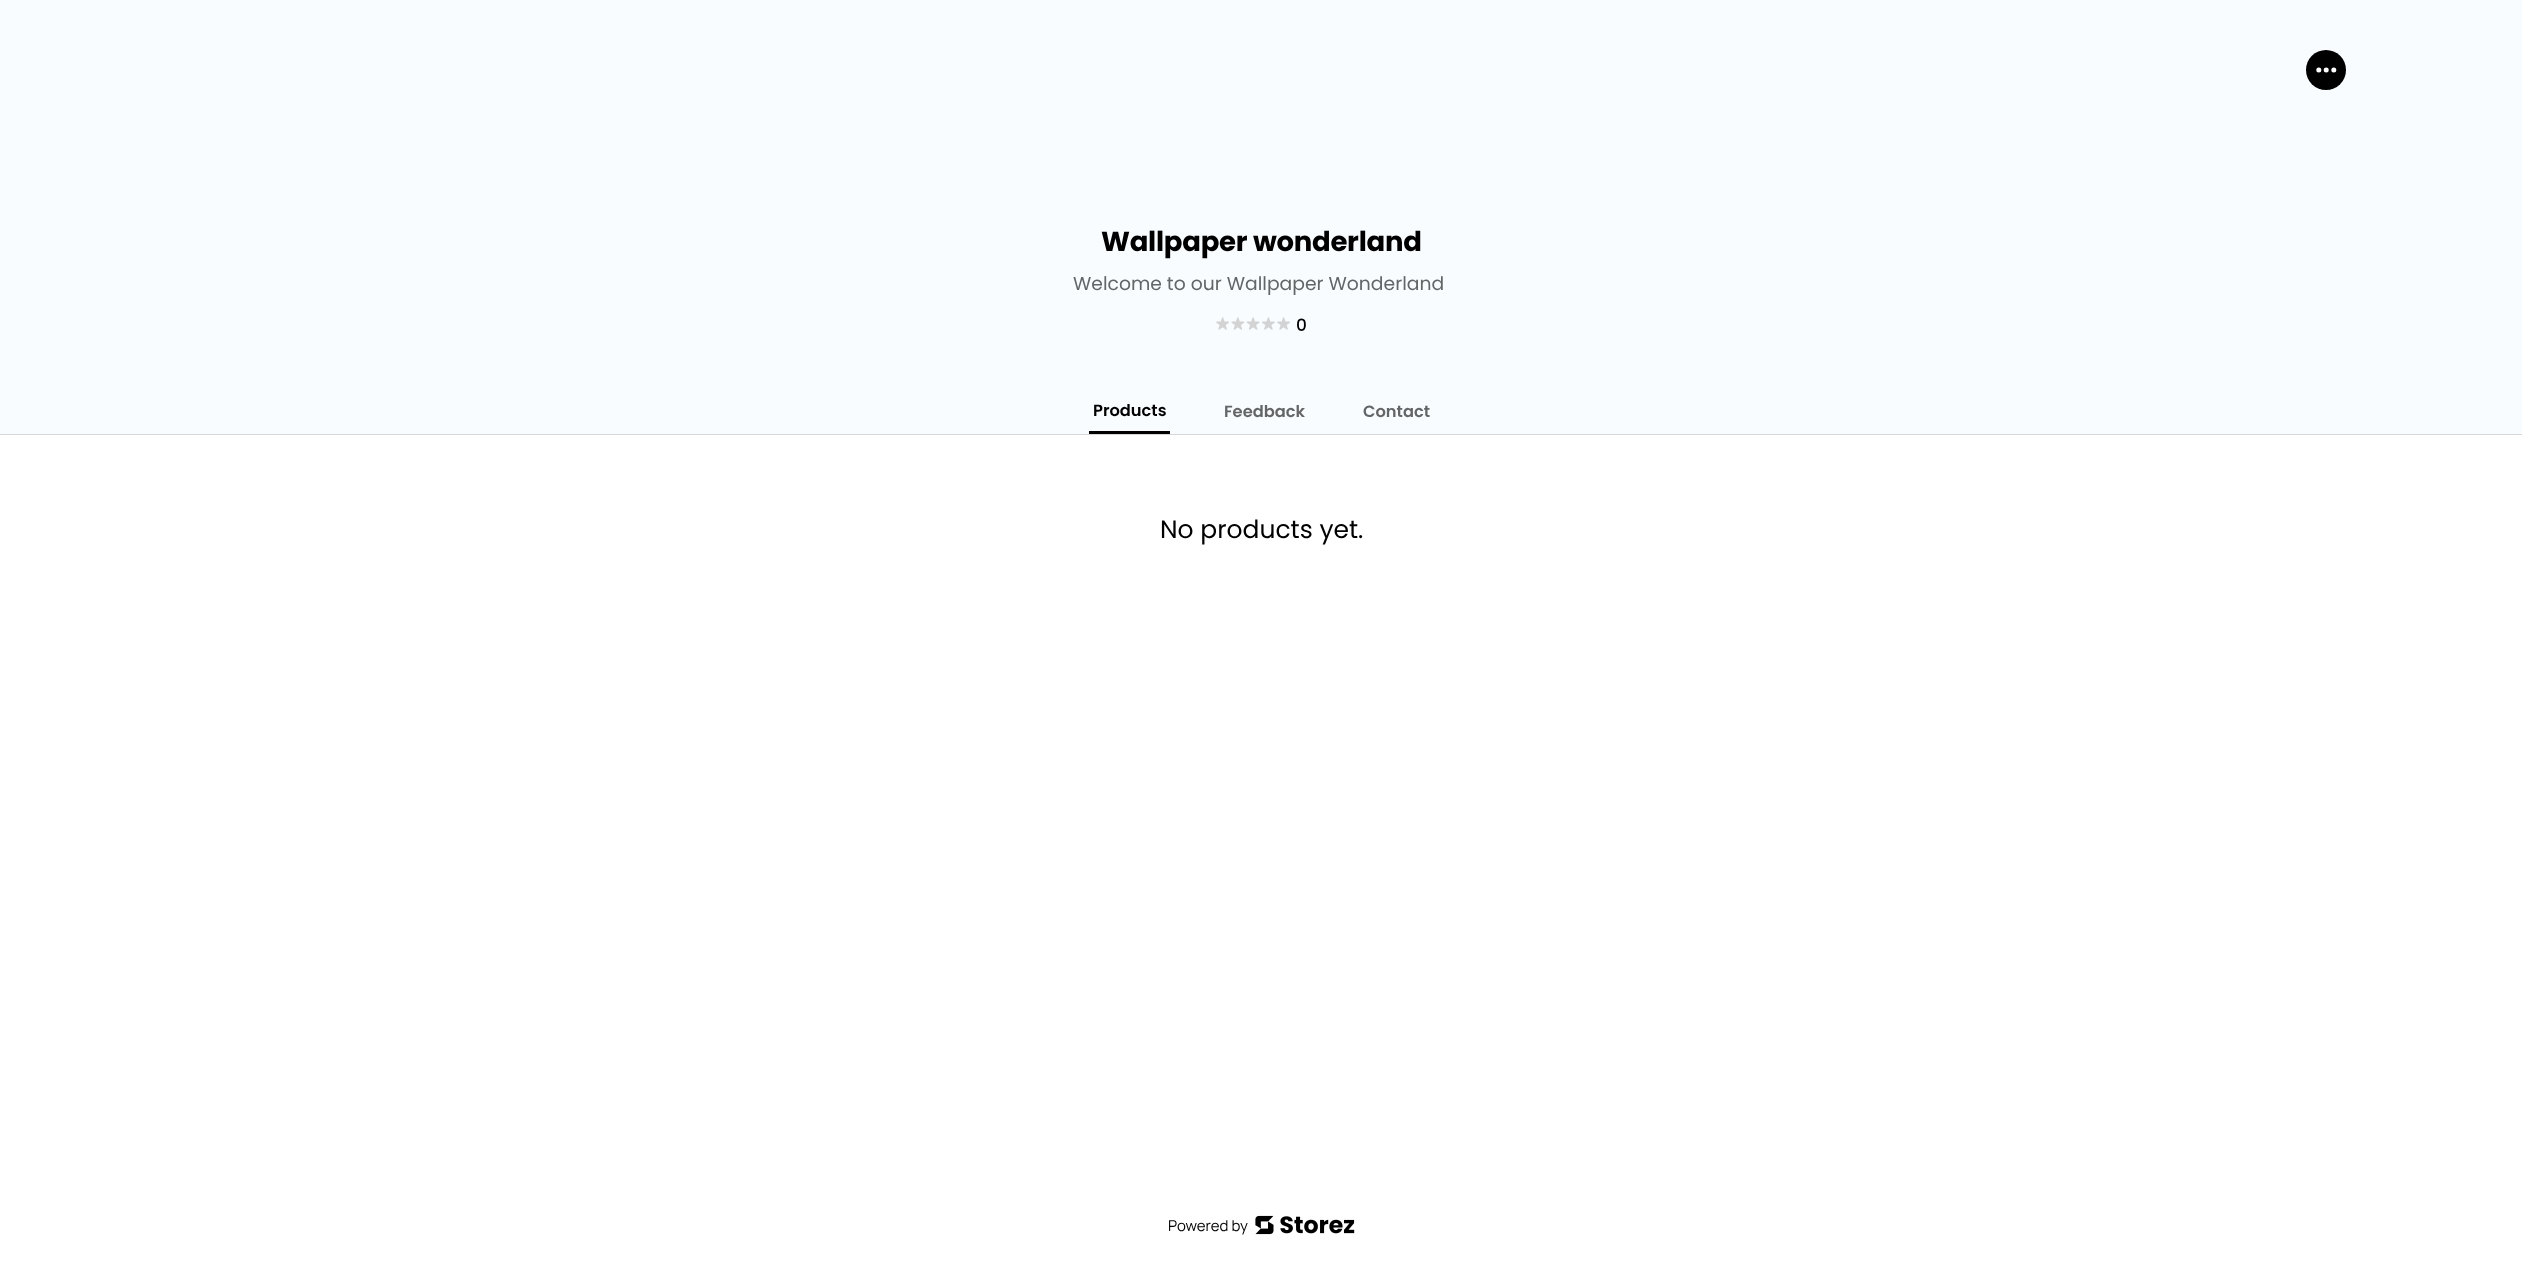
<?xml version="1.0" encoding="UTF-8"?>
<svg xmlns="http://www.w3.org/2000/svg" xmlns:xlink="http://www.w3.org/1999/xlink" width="2522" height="1263">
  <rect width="100%" height="100%" fill="#f8fcff" />
  <circle cx="2326" cy="70" r="20" fill="#000000" />
  <circle cx="2326.2" cy="70" r="2.5" fill="#ffffff" />
  <circle cx="2318.8" cy="70" r="2.5" fill="#ffffff" />
  <circle cx="2333.8" cy="70" r="2.5" fill="#ffffff" />
  <rect x="1089" y="431" width="81" height="3" fill="#000000" />
  <rect y="435" width="2522" height="828" fill="#ffffff" />
  <rect y="434" width="2522" height="1" fill="#d7d7d7" />
  <image x="1255" y="1215" width="100" height="20" xlink:href="image1.png" />
  <text x="1101" y="251" style="font-family: Poppins; font-size: 27.5px; font-weight: bold; letter-spacing: -0.25px; fill: #000000">Wallpaper wonderland</text>
  <text x="1073" y="290" style="font-family: Poppins; font-size: 18.75px; fill: #636566">Welcome to our Wallpaper Wonderland</text>
  <text x="1215" y="329" style="font-family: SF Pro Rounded; font-size: 15px; font-weight: 200; fill: #d3d3d3">★★★★★</text>
  <text x="1296" y="331" style="font-family: Poppins; font-size: 17px; font-weight: 500; fill: #000000">0</text>
  <text x="1093" y="416" style="font-family: Poppins; font-size: 16.25px; font-weight: 600; fill: #000000">Products</text>
  <text x="1224" y="417" style="font-family: Poppins; font-size: 16.25px; font-weight: 600; fill: #636566">Feedback</text>
  <text x="1363" y="417" style="font-family: Poppins; font-size: 16.25px; font-weight: 600; fill: #636566">Contact</text>
  <text x="1160" y="538" style="font-family: Poppins; font-size: 25px; fill: #000000">No products yet.</text>
  <text x="1168" y="1231" style="font-family: Manrope; font-size: 15px; fill: #000000">Powered by</text>
</svg>
